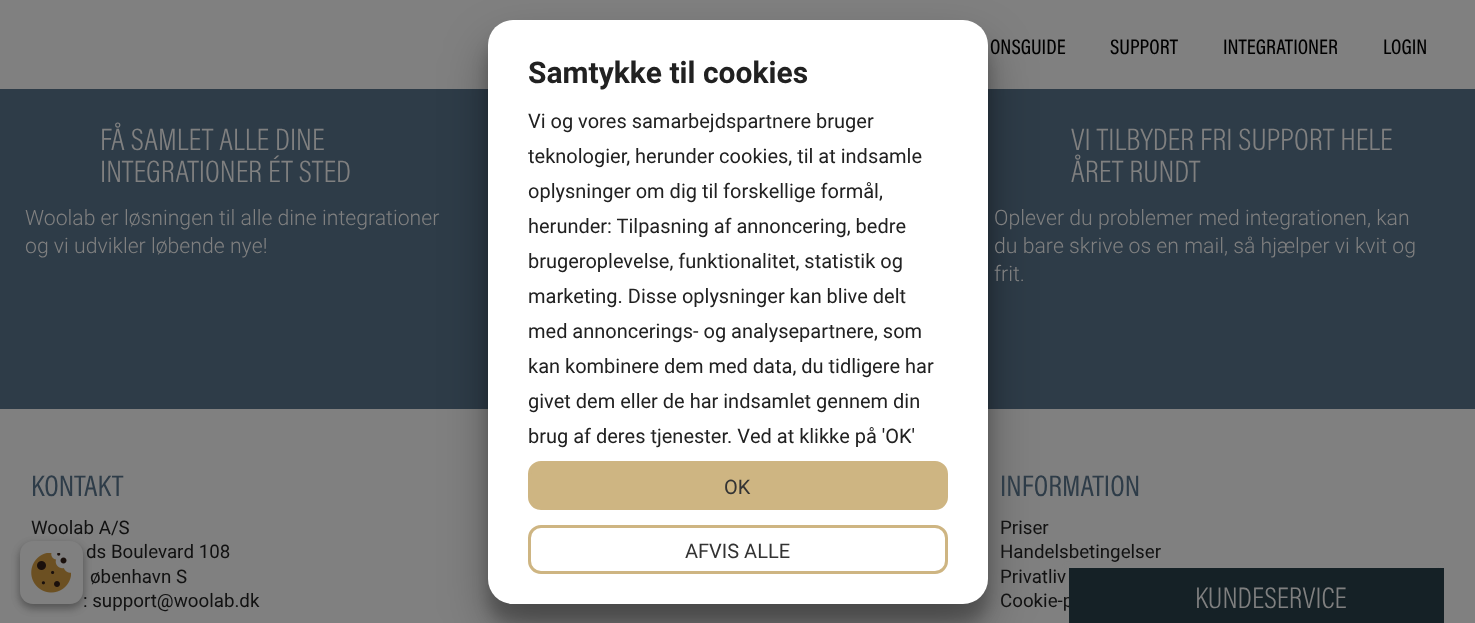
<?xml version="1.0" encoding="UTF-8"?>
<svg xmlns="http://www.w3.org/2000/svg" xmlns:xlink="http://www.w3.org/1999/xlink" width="1475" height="623">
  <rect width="100%" height="100%" fill="#808080" />
  <rect y="89" width="1475" height="320" fill="#2e3c48" />
  <rect x="1066" y="566" width="375" height="57" fill="#808080" fill-opacity="0.12" filter="blur(2.5px)" />
  <rect x="488" y="39" width="500" height="584" rx="25" fill="#000000" fill-opacity="0.22" filter="blur(7.5px)" />
  <rect x="488" y="44" width="500" height="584" rx="25" fill="#000000" fill-opacity="0.3" filter="blur(24px)" />
  <rect x="488" y="20" width="500" height="584" rx="25" fill="#ffffff" />
  <rect x="529.5" y="462.5" width="417" height="46" rx="11.5" fill="#ceb582" stroke="#ceb582" stroke-width="3" />
  <rect x="529.5" y="526.5" width="417" height="46" rx="11.5" fill="none" stroke="#ceb582" stroke-width="3" />
  <rect x="20" y="545" width="63" height="63" rx="13" fill="#000000" fill-opacity="0.23" filter="blur(4px)" />
  <rect x="20" y="545" width="63" height="63" rx="13" fill="#000000" fill-opacity="0.16" filter="blur(4px)" />
  <rect x="20" y="541" width="63" height="63" rx="13" fill="#808080" />
  <image x="31" y="553" width="40" height="40" xlink:href="image1.png" />
  <text x="990" y="54" style="font-family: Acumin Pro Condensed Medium; font-size: 21.25px; font-weight: 500; fill: #000000">ONSGUIDE</text>
  <text x="1110" y="54" style="font-family: Acumin Pro Condensed Medium; font-size: 21.25px; font-weight: 500; fill: #000000">SUPPORT</text>
  <text x="1223" y="54" style="font-family: Acumin Pro Condensed Medium; font-size: 21.25px; font-weight: 500; fill: #000000">INTEGRATIONER</text>
  <text x="1383" y="54" style="font-family: Acumin Pro Condensed Medium; font-size: 21.25px; font-weight: 500; fill: #000000">LOGIN</text>
  <text x="100" y="150" style="font-family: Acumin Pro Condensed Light; font-size: 31.25px; font-weight: 300; fill: #808080">FÅ SAMLET ALLE DINE</text>
  <text x="100" y="182" style="font-family: Acumin Pro Condensed Light; font-size: 31.25px; font-weight: 300; fill: #808080">INTEGRATIONER ÉT STED</text>
  <text x="25" y="225" style="font-family: Roboto; font-size: 21.25px; font-weight: 300; fill: #808080">Woolab er løsningen til alle dine integrationer</text>
  <text x="25" y="253" style="font-family: Roboto; font-size: 21.25px; font-weight: 300; fill: #808080">og vi udvikler løbende nye!</text>
  <text x="1071" y="150" style="font-family: Acumin Pro Condensed Light; font-size: 31.25px; font-weight: 300; fill: #808080">VI TILBYDER FRI SUPPORT HELE</text>
  <text x="1071" y="182" style="font-family: Acumin Pro Condensed Light; font-size: 31.25px; font-weight: 300; fill: #808080">ÅRET RUNDT</text>
  <text x="994" y="225" style="font-family: Roboto; font-size: 21.25px; font-weight: 300; fill: #808080">Oplever du problemer med integrationen, kan</text>
  <text x="994" y="253" style="font-family: Roboto; font-size: 21.25px; font-weight: 300; fill: #808080">du bare skrive os en mail, så hjælper vi kvit og</text>
  <text x="994" y="281" style="font-family: Roboto; font-size: 21.25px; font-weight: 300; fill: #808080">frit.</text>
  <text x="31" y="496" style="font-family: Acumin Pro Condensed; font-size: 30px; fill: #2e3c48">KONTAKT</text>
  <text x="31" y="534" style="font-family: Roboto; font-size: 18.75px; fill: #111111">Woolab A/S</text>
  <text x="86" y="558" style="font-family: Roboto; font-size: 18.75px; fill: #111111">ds Boulevard 108</text>
  <text x="90" y="583" style="font-family: Roboto; font-size: 18.75px; fill: #111111">øbenhavn S</text>
  <text x="83" y="607" style="font-family: Roboto; font-size: 18.75px; fill: #111111">: support@woolab.dk</text>
  <text x="1000" y="496" style="font-family: Acumin Pro Condensed; font-size: 30px; fill: #2e3c48">INFORMATION</text>
  <text x="1000" y="534" style="font-family: Roboto; font-size: 18.75px; fill: #111111">Priser</text>
  <text x="1000" y="558" style="font-family: Roboto; font-size: 18.75px; fill: #111111">Handelsbetingelser</text>
  <text x="1000" y="583" style="font-family: Roboto; font-size: 18.75px; fill: #111111">Privatliv</text>
  <text x="1000" y="607" style="font-family: Roboto; font-size: 18.75px; fill: #111111">Cookie-p</text>
  <rect x="1069" y="568" width="375" height="55" fill="#152126" />
  <text x="1195" y="608" style="font-family: Acumin Pro Condensed Light; font-size: 30px; font-weight: 300; fill: #808080">KUNDESERVICE</text>
  <text x="528" y="83" style="font-family: Roboto; font-size: 30px; font-weight: bold; fill: #212121">Samtykke til cookies</text>
  <text x="528" y="128" style="font-family: Roboto; font-size: 20px; fill: #212121">Vi og vores samarbejdspartnere bruger</text>
  <text x="528" y="163" style="font-family: Roboto; font-size: 20px; fill: #212121">teknologier, herunder cookies, til at indsamle</text>
  <text x="528" y="198" style="font-family: Roboto; font-size: 20px; fill: #212121">oplysninger om dig til forskellige formål,</text>
  <text x="528" y="233" style="font-family: Roboto; font-size: 20px; fill: #212121">herunder: Tilpasning af annoncering, bedre</text>
  <text x="528" y="268" style="font-family: Roboto; font-size: 20px; fill: #212121">brugeroplevelse, funktionalitet, statistik og</text>
  <text x="528" y="303" style="font-family: Roboto; font-size: 20px; fill: #212121">marketing. Disse oplysninger kan blive delt</text>
  <text x="528" y="338" style="font-family: Roboto; font-size: 20px; fill: #212121">med annoncerings- og analysepartnere, som</text>
  <text x="528" y="373" style="font-family: Roboto; font-size: 20px; fill: #212121">kan kombinere dem med data, du tidligere har</text>
  <text x="528" y="408" style="font-family: Roboto; font-size: 20px; fill: #212121">givet dem eller de har indsamlet gennem din</text>
  <text x="528" y="443" style="font-family: Roboto; font-size: 20px; fill: #212121">brug af deres tjenester. Ved at klikke på 'OK'</text>
  <text x="724" y="494" style="font-family: Roboto; font-size: 20px; fill: #333333">OK</text>
  <text x="685" y="558" style="font-family: Roboto; font-size: 20px; fill: #333333">AFVIS ALLE</text>
</svg>
